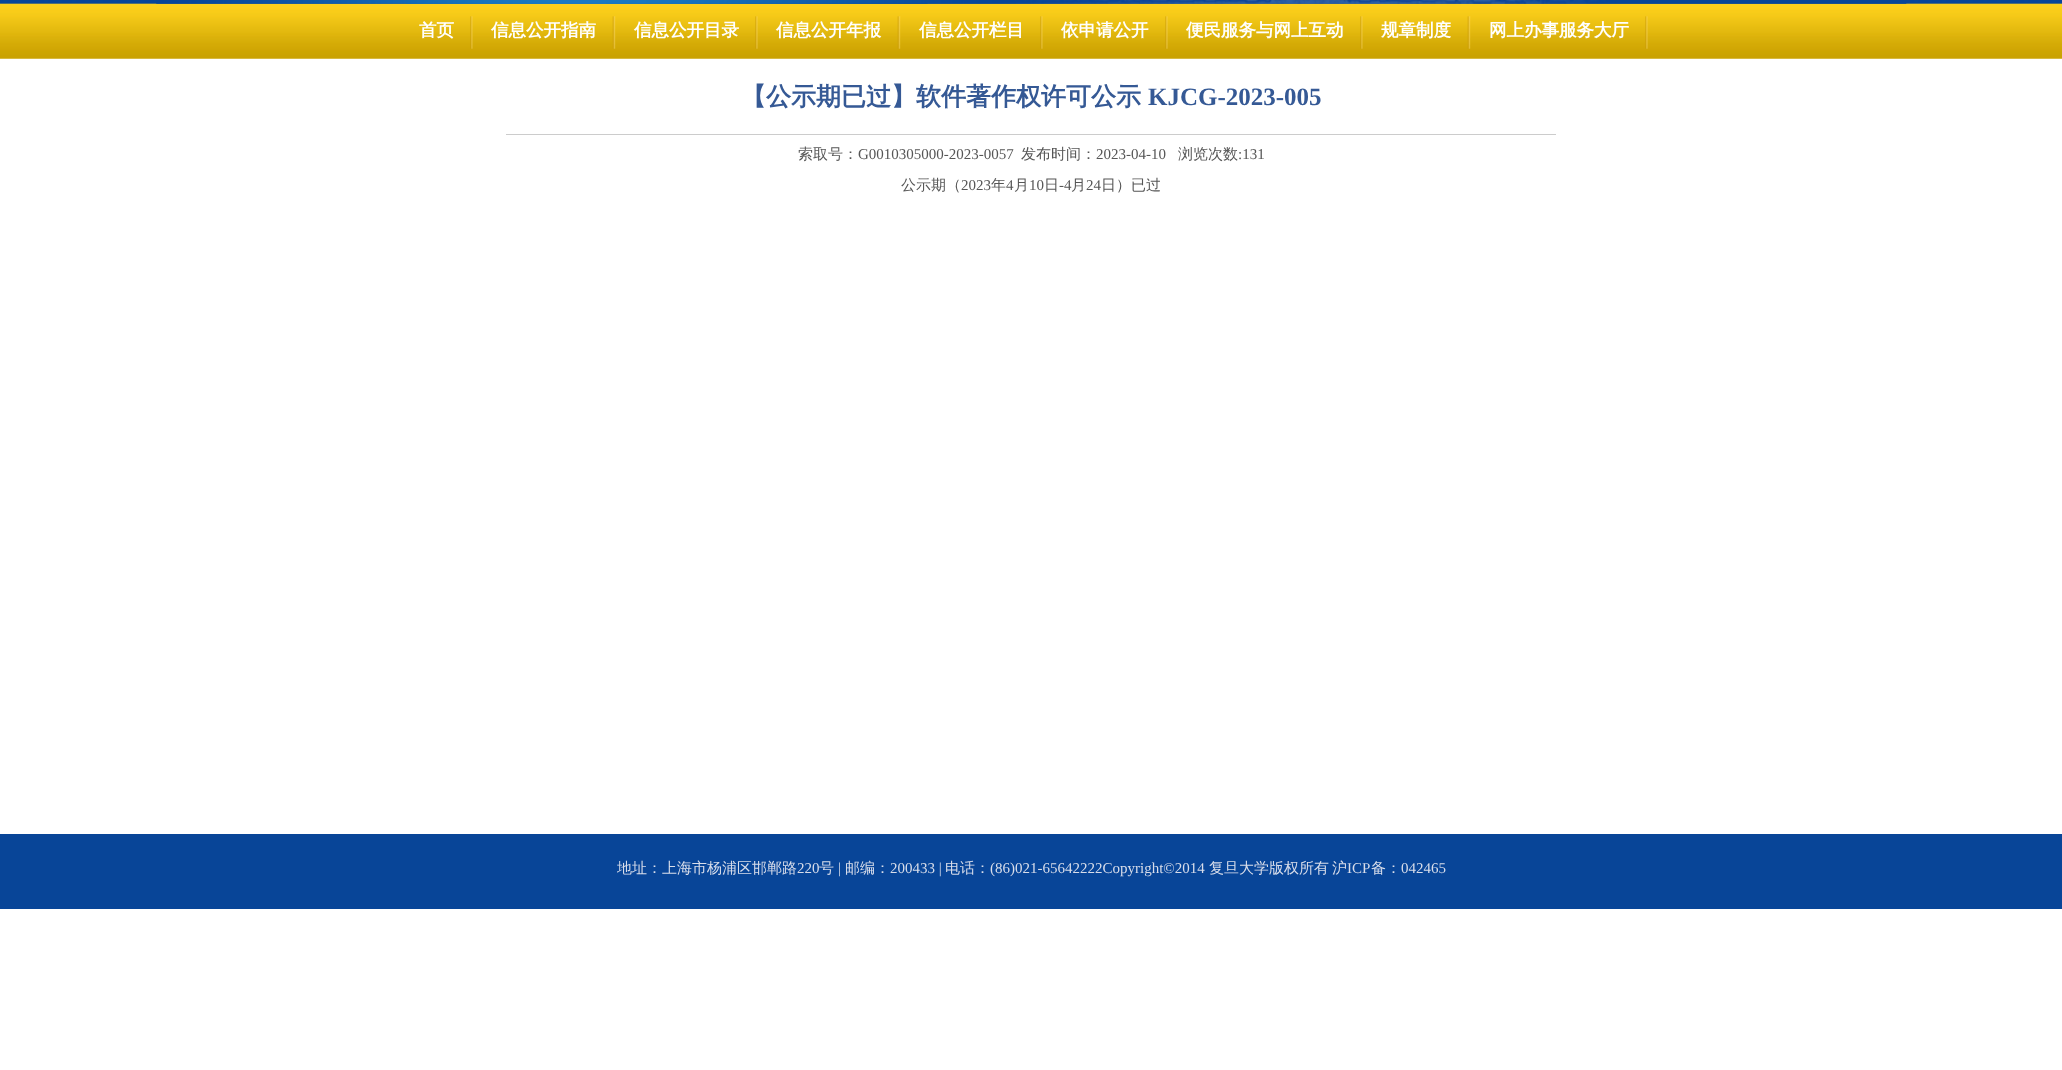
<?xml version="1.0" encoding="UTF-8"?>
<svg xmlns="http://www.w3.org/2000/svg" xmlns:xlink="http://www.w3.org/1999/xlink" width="2062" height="1070">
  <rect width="100%" height="100%" fill="#ffffff" />
  <image x="0" y="0" width="2062" height="59" xlink:href="image1.png" />
  <image x="156" y="0" width="1751" height="4" xlink:href="image2.png" />
  <image x="406" y="3" width="522" height="1" xlink:href="image3.png" />
  <image x="470" y="16" width="3" height="33" xlink:href="image4.png" />
  <image x="612" y="16" width="4" height="33" xlink:href="image5.png" />
  <image x="755" y="16" width="3" height="33" xlink:href="image6.png" />
  <image x="897" y="16" width="4" height="33" xlink:href="image5.png" />
  <image x="1040" y="16" width="3" height="33" xlink:href="image4.png" />
  <image x="1165" y="16" width="3" height="33" xlink:href="image6.png" />
  <image x="1360" y="16" width="3" height="33" xlink:href="image4.png" />
  <image x="1467" y="16" width="4" height="33" xlink:href="image5.png" />
  <image x="1645" y="16" width="3" height="33" xlink:href="image6.png" />
  <rect x="506" y="134" width="1050" height="1" fill="#cccccc" />
  <rect y="834" width="2062" height="75" fill="#084598" />
  <text x="419" y="36" style="font-family: WenQuanYi Zen Hei; font-size: 17.5px; font-weight: bold; fill: #ffffff">首页</text>
  <text x="491" y="36" style="font-family: WenQuanYi Zen Hei; font-size: 17.5px; font-weight: bold; fill: #ffffff">信息公开指南</text>
  <text x="634" y="36" style="font-family: WenQuanYi Zen Hei; font-size: 17.5px; font-weight: bold; fill: #ffffff">信息公开目录</text>
  <text x="776" y="36" style="font-family: WenQuanYi Zen Hei; font-size: 17.5px; font-weight: bold; fill: #ffffff">信息公开年报</text>
  <text x="919" y="36" style="font-family: WenQuanYi Zen Hei; font-size: 17.5px; font-weight: bold; fill: #ffffff">信息公开栏目</text>
  <text x="1061" y="36" style="font-family: WenQuanYi Zen Hei; font-size: 17.5px; font-weight: bold; fill: #ffffff">依申请公开</text>
  <text x="1186" y="36" style="font-family: WenQuanYi Zen Hei; font-size: 17.5px; font-weight: bold; fill: #ffffff">便民服务与网上互动</text>
  <text x="1381" y="36" style="font-family: WenQuanYi Zen Hei; font-size: 17.5px; font-weight: bold; fill: #ffffff">规章制度</text>
  <text x="1489" y="36" style="font-family: WenQuanYi Zen Hei; font-size: 17.5px; font-weight: bold; fill: #ffffff">网上办事服务大厅</text>
  <text x="741" y="105" style="font-family: WenQuanYi Zen Hei; font-size: 25px; font-weight: bold; fill: #355995">【公示期已过】软件著作权许可公示</text>
  <text x="1148" y="105" style="font-family: Liberation Serif; font-size: 25px; font-weight: bold; fill: #355995">KJCG-2023-005</text>
  <text x="798" y="159" style="font-family: WenQuanYi Zen Hei; font-size: 15px; font-weight: 500; fill: #565656">索取号：</text>
  <text x="858" y="159" style="font-family: Liberation Serif; font-size: 15px; fill: #565656">G0010305000-2023-0057</text>
  <text x="1021" y="159" style="font-family: WenQuanYi Zen Hei; font-size: 15px; font-weight: 500; fill: #565656">发布时间：</text>
  <text x="1096" y="159" style="font-family: Liberation Serif; font-size: 15px; fill: #565656">2023-04-10</text>
  <text x="1178" y="159" style="font-family: WenQuanYi Zen Hei; font-size: 15px; font-weight: 500; fill: #565656">浏览次数</text>
  <text x="1238" y="159" style="font-family: Liberation Serif; font-size: 15px; fill: #565656">:131</text>
  <text x="901" y="190" style="font-family: WenQuanYi Zen Hei; font-size: 15px; font-weight: 500; fill: #565656">公示期（</text>
  <text x="961" y="190" style="font-family: Liberation Serif; font-size: 15px; fill: #565656">2023</text>
  <text x="991" y="190" style="font-family: WenQuanYi Zen Hei; font-size: 15px; font-weight: 500; fill: #565656">年</text>
  <text x="1006" y="190" style="font-family: Liberation Serif; font-size: 15px; fill: #565656">4</text>
  <text x="1014" y="190" style="font-family: WenQuanYi Zen Hei; font-size: 15px; font-weight: 500; fill: #565656">月</text>
  <text x="1029" y="190" style="font-family: Liberation Serif; font-size: 15px; fill: #565656">10</text>
  <text x="1044" y="190" style="font-family: WenQuanYi Zen Hei; font-size: 15px; font-weight: 500; fill: #565656">日</text>
  <text x="1059" y="190" style="font-family: Liberation Serif; font-size: 15px; fill: #565656">-4</text>
  <text x="1071" y="190" style="font-family: WenQuanYi Zen Hei; font-size: 15px; font-weight: 500; fill: #565656">月</text>
  <text x="1086" y="190" style="font-family: Liberation Serif; font-size: 15px; fill: #565656">24</text>
  <text x="1101" y="190" style="font-family: WenQuanYi Zen Hei; font-size: 15px; font-weight: 500; fill: #565656">日）已过</text>
  <text x="617" y="873" style="font-family: WenQuanYi Zen Hei; font-size: 15px; font-weight: 500; fill: #d8ddea">地址：上海市杨浦区邯郸路</text>
  <text x="797" y="873" style="font-family: Liberation Serif; font-size: 15px; fill: #d8ddea">220</text>
  <text x="819" y="873" style="font-family: WenQuanYi Zen Hei; font-size: 15px; font-weight: 500; fill: #d8ddea">号</text>
  <text x="838" y="873" style="font-family: Liberation Serif; font-size: 15px; fill: #d8ddea">|</text>
  <text x="845" y="873" style="font-family: WenQuanYi Zen Hei; font-size: 15px; font-weight: 500; fill: #d8ddea">邮编：</text>
  <text x="890" y="873" style="font-family: Liberation Serif; font-size: 15px; fill: #d8ddea">200433 |</text>
  <text x="945" y="873" style="font-family: WenQuanYi Zen Hei; font-size: 15px; font-weight: 500; fill: #d8ddea">电话：</text>
  <text x="990" y="873" style="font-family: Liberation Serif; font-size: 15px; fill: #d8ddea">(86)021-65642222Copyright©2014</text>
  <text x="1209" y="873" style="font-family: WenQuanYi Zen Hei; font-size: 15px; font-weight: 500; fill: #d8ddea">复旦大学版权所有</text>
  <text x="1332" y="873" style="font-family: WenQuanYi Zen Hei; font-size: 15px; font-weight: 500; fill: #d8ddea">沪</text>
  <text x="1347" y="873" style="font-family: Liberation Serif; font-size: 15px; fill: #d8ddea">ICP</text>
  <text x="1371" y="873" style="font-family: WenQuanYi Zen Hei; font-size: 15px; font-weight: 500; fill: #d8ddea">备：</text>
  <text x="1401" y="873" style="font-family: Liberation Serif; font-size: 15px; fill: #d8ddea">042465</text>
</svg>
